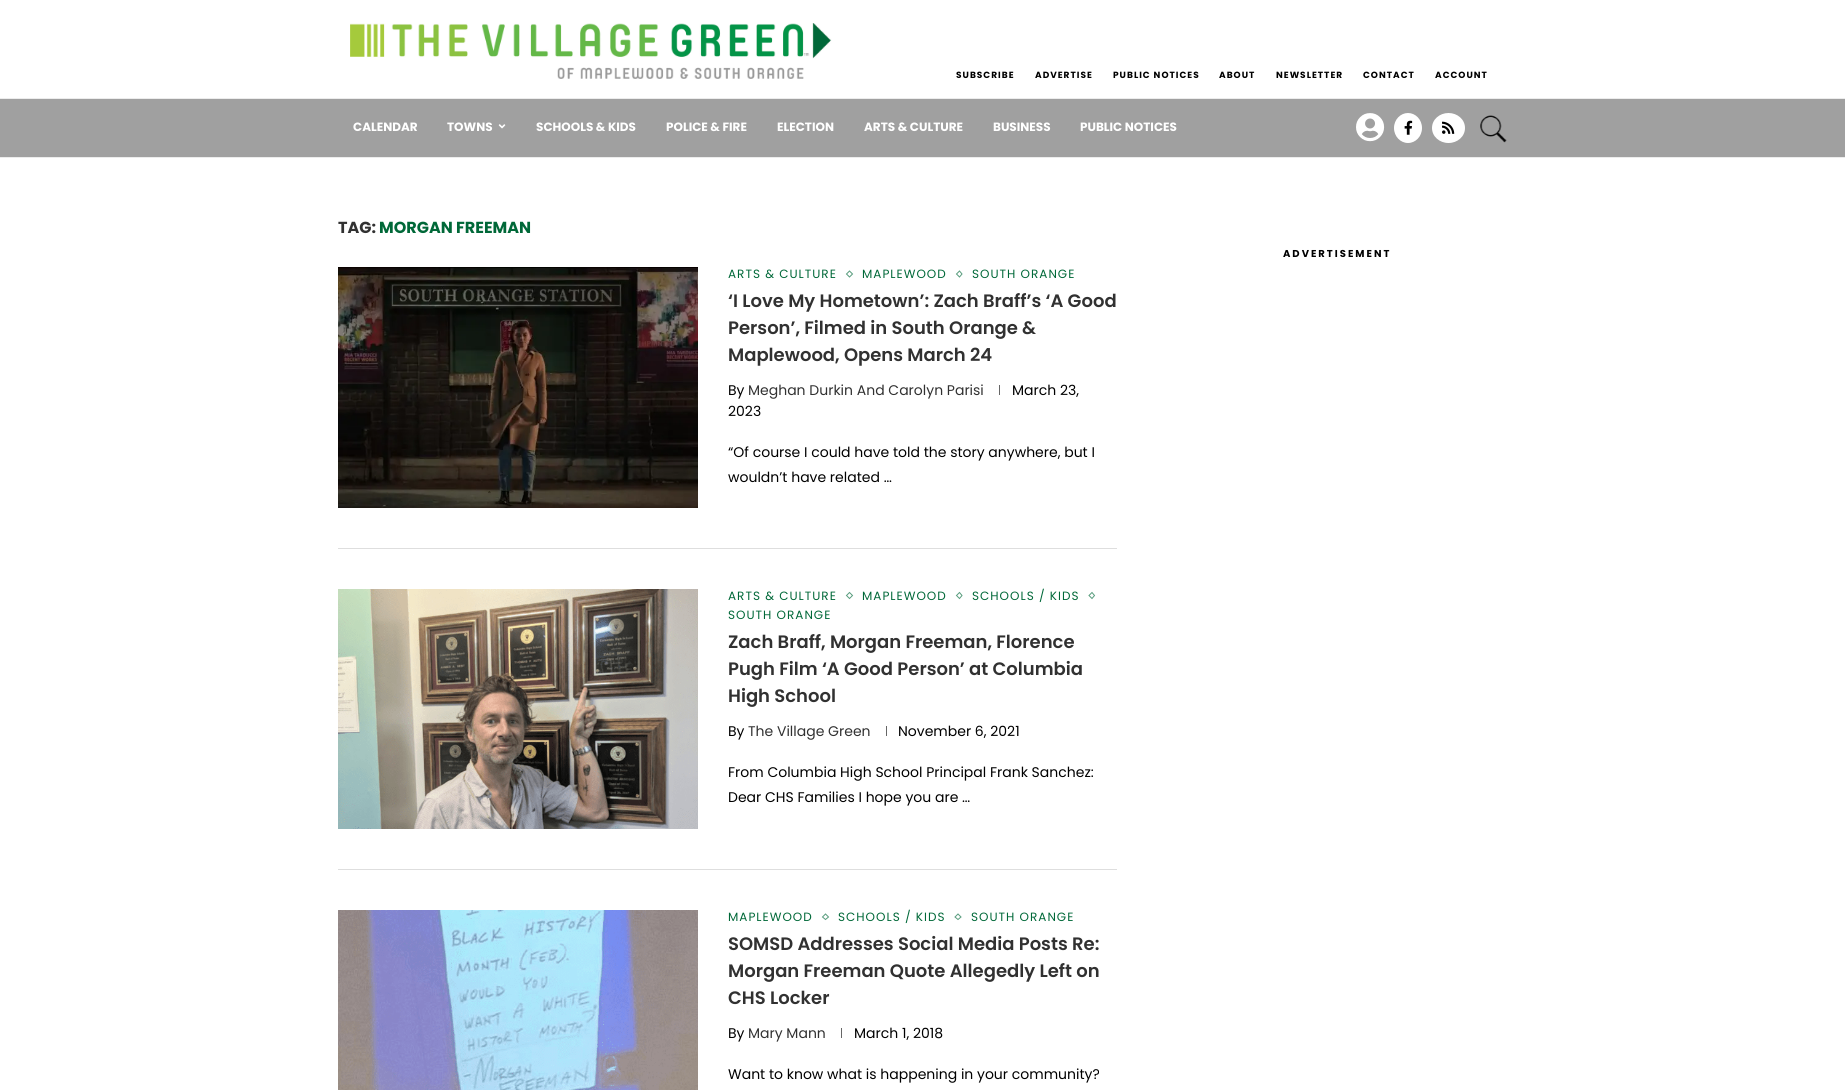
#include <cairo.h>
#include <math.h>
#include <stddef.h>

static cairo_t *c;
static void C(unsigned color){cairo_set_source_rgb(c, (color >> 16) / 255.0, (color >> 8 & 255) / 255.0, (color & 255) / 255.0);}
static void F(const char *family, double size, int italic, int bold){cairo_select_font_face(c, family, italic ? CAIRO_FONT_SLANT_ITALIC : CAIRO_FONT_SLANT_NORMAL,bold ? CAIRO_FONT_WEIGHT_BOLD : CAIRO_FONT_WEIGHT_NORMAL);cairo_set_font_size(c, size);}
static void T(double x, double y, const char *s){cairo_move_to(c, x, y);cairo_show_text(c, s);}
static void L(double x, double y, const char *s, double letter, double word){cairo_move_to(c, x, y);while (*s) {char ch[5] = {0};int n = 0;do ch[n++] = *s++; while ((*s & 0xC0) == 0x80);cairo_show_text(c, ch);cairo_rel_move_to(c, letter + word * (*ch == ' '), 0);}}
static void R(double x, double y, double w, double h){cairo_rectangle(c, x, y, w, h);cairo_fill(c);}
static void I(const char *path, double x, double y, double w, double h){cairo_surface_t *image = cairo_image_surface_create_from_png(path);cairo_save(c);cairo_set_source_surface(c, image, x, y);cairo_rectangle(c, x, y, w, h);cairo_fill(c);cairo_restore(c);cairo_surface_destroy(image);}
int main(void) {
cairo_surface_t *surface = cairo_image_surface_create(CAIRO_FORMAT_RGB24, 1845, 1090);
c = cairo_create(surface);
cairo_font_options_t *options = cairo_font_options_create();
cairo_font_options_set_hint_metrics(options, CAIRO_HINT_METRICS_OFF);
cairo_font_options_set_hint_style(options, CAIRO_HINT_STYLE_NONE);
cairo_set_font_options(c, options);
cairo_set_miter_limit(c, 4);
C(0xffffff);
cairo_paint(c);
I("1.png",350,23,482,56);
F("Poppins",9,0,1);
C(0x000000);
L(956,78,"SUBSCRIBE",1,0);
L(1035,78,"ADVERTISE",1,0);
L(1113,78,"PUBLIC NOTICES",1,0);
L(1219,78,"ABOUT",1,0);
L(1276,78,"NEWSLETTER",1,0);
L(1363,78,"CONTACT",1,0);
L(1435,78,"ACCOUNT",1,0);
C(0xa0a0a0);
R(0,99,1845,58);
C(0xececec);
R(0,98,1845,1);
R(0,157,1845,1);
F("Poppins",12,0,1);
C(0xffffff);
T(353,131,"CALENDAR");
T(447,131,"TOWNS");
I("2.png",498,124,8,5);
T(536,131,"SCHOOLS & KIDS");
T(666,131,"POLICE & FIRE");
T(777,131,"ELECTION");
T(864,131,"ARTS & CULTURE");
T(993,131,"BUSINESS");
T(1080,131,"PUBLIC NOTICES");
I("3.png",1356,113,29,29);
cairo_new_path(c);
cairo_move_to(c,1408,113);
cairo_curve_to(c,1415.5,113,1422,119.5,1422,128);
cairo_curve_to(c,1422,136.5,1415.5,143,1408,143);
cairo_curve_to(c,1400.5,143,1394,136.5,1394,128);
cairo_curve_to(c,1394,119.5,1400.5,113,1408,113);
cairo_close_path(c);
cairo_fill(c);
I("4.png",1404,120,9,15);
cairo_new_path(c);
cairo_move_to(c,1448.5,113);
cairo_curve_to(c,1457.5,113,1465,119.5,1465,128);
cairo_curve_to(c,1465,136.5,1457.5,143,1448.5,143);
cairo_curve_to(c,1439.5,143,1432,136.5,1432,128);
cairo_curve_to(c,1432,119.5,1439.5,113,1448.5,113);
cairo_close_path(c);
cairo_fill(c);
I("5.png",1442,121,13,13);
I("6.png",1480,115,27,28);
F("Poppins",16,0,1);
C(0x313131);
T(338,233,"TAG:");
C(0x006838);
T(379,233,"MORGAN FREEMAN");
C(0xdedede);
R(338,548,779,1);
I("7.png",338,267,360,241);
F("Poppins",12,0,0);
C(0x006838);
L(728,278,"ARTS & CULTURE",1,0);
cairo_new_path(c);
cairo_move_to(c,849.5,271);
cairo_line_to(c,852.5,274);
cairo_line_to(c,849.5,277);
cairo_line_to(c,846.5,274);
cairo_close_path(c);
C(0x599d7e);
cairo_set_line_width(c,1);
cairo_stroke(c);
C(0x006838);
L(862,278,"MAPLEWOOD",1,0);
cairo_new_path(c);
cairo_move_to(c,959.5,271);
cairo_line_to(c,962,274);
cairo_line_to(c,959.5,277);
cairo_line_to(c,956.5,274);
cairo_close_path(c);
C(0x599d7e);
cairo_stroke(c);
C(0x006838);
L(972,278,"SOUTH ORANGE",1,0);
F("Poppins SemiBold",18,0,0);
C(0x313131);
T(728,307,"‘I Love My Hometown’: Zach Braff’s ‘A Good");
T(728,334,"Person’, Filmed in South Orange &");
T(728,361,"Maplewood, Opens March 24");
F("Poppins",14,0,0);
C(0x000000);
T(728,395,"By");
C(0x313131);
T(748,395,"Meghan Durkin And Carolyn Parisi");
C(0x666666);
R(999,385,1,10);
C(0x000000);
T(1012,395,"March 23,");
T(728,416,"2023");
T(728,457,"“Of course I could have told the story anywhere, but I");
T(728,482,"wouldn’t have related …");
C(0xdedede);
R(338,869,779,1);
I("8.png",338,589,360,240);
F("Poppins",12,0,0);
C(0x006838);
L(728,600,"ARTS & CULTURE",1,0);
cairo_new_path(c);
cairo_move_to(c,849.5,592.5);
cairo_line_to(c,852.5,595.5);
cairo_line_to(c,849.5,598.5);
cairo_line_to(c,846.5,595.5);
cairo_close_path(c);
C(0x599d7e);
cairo_stroke(c);
C(0x006838);
L(862,600,"MAPLEWOOD",1,0);
cairo_new_path(c);
cairo_move_to(c,959.5,592.5);
cairo_line_to(c,962,595.5);
cairo_line_to(c,959.5,598.5);
cairo_line_to(c,956.5,595.5);
cairo_close_path(c);
C(0x599d7e);
cairo_stroke(c);
C(0x006838);
L(972,600,"SCHOOLS / KIDS",1,0);
cairo_new_path(c);
cairo_move_to(c,1092,592.5);
cairo_line_to(c,1094.5,595.5);
cairo_line_to(c,1092,598.5);
cairo_line_to(c,1089,595.5);
cairo_close_path(c);
C(0x599d7e);
cairo_stroke(c);
C(0x006838);
L(728,619,"SOUTH ORANGE",1,0);
F("Poppins SemiBold",18,0,0);
C(0x313131);
T(728,648,"Zach Braff, Morgan Freeman, Florence");
T(728,675,"Pugh Film ‘A Good Person’ at Columbia");
T(728,702,"High School");
F("Poppins",14,0,0);
C(0x000000);
T(728,736,"By");
C(0x313131);
T(748,736,"The Village Green");
C(0x666666);
R(886,726,1,10);
C(0x000000);
T(898,736,"November 6, 2021");
T(728,777,"From Columbia High School Principal Frank Sanchez:");
T(728,802,"Dear CHS Families I hope you are …");
I("9.png",338,910,360,180);
F("Poppins",12,0,0);
C(0x006838);
L(728,921,"MAPLEWOOD",1,0);
cairo_new_path(c);
cairo_move_to(c,825.5,914);
cairo_line_to(c,828.5,917);
cairo_line_to(c,825.5,919.5);
cairo_line_to(c,822.5,917);
cairo_close_path(c);
C(0x599d7e);
cairo_stroke(c);
C(0x006838);
L(838,921,"SCHOOLS / KIDS",1,0);
cairo_new_path(c);
cairo_move_to(c,958,914);
cairo_line_to(c,961,917);
cairo_line_to(c,958,919.5);
cairo_line_to(c,955,917);
cairo_close_path(c);
C(0x599d7e);
cairo_stroke(c);
C(0x006838);
L(971,921,"SOUTH ORANGE",1,0);
F("Poppins SemiBold",18,0,0);
C(0x313131);
T(728,950,"SOMSD Addresses Social Media Posts Re:");
T(728,977,"Morgan Freeman Quote Allegedly Left on");
T(728,1004,"CHS Locker");
F("Poppins",14,0,0);
C(0x000000);
T(728,1038,"By");
C(0x313131);
T(748,1038,"Mary Mann");
C(0x666666);
R(841,1028,1,10);
C(0x000000);
T(854,1038,"March 1, 2018");
T(728,1079,"Want to know what is happening in your community?");
F("Poppins",10,0,1);
L(1283,257,"ADVERTISEMENT",2,0);
cairo_surface_write_to_png(surface, "o.png");
cairo_font_options_destroy(options);
cairo_destroy(c);
cairo_surface_destroy(surface);
return 0;
}
